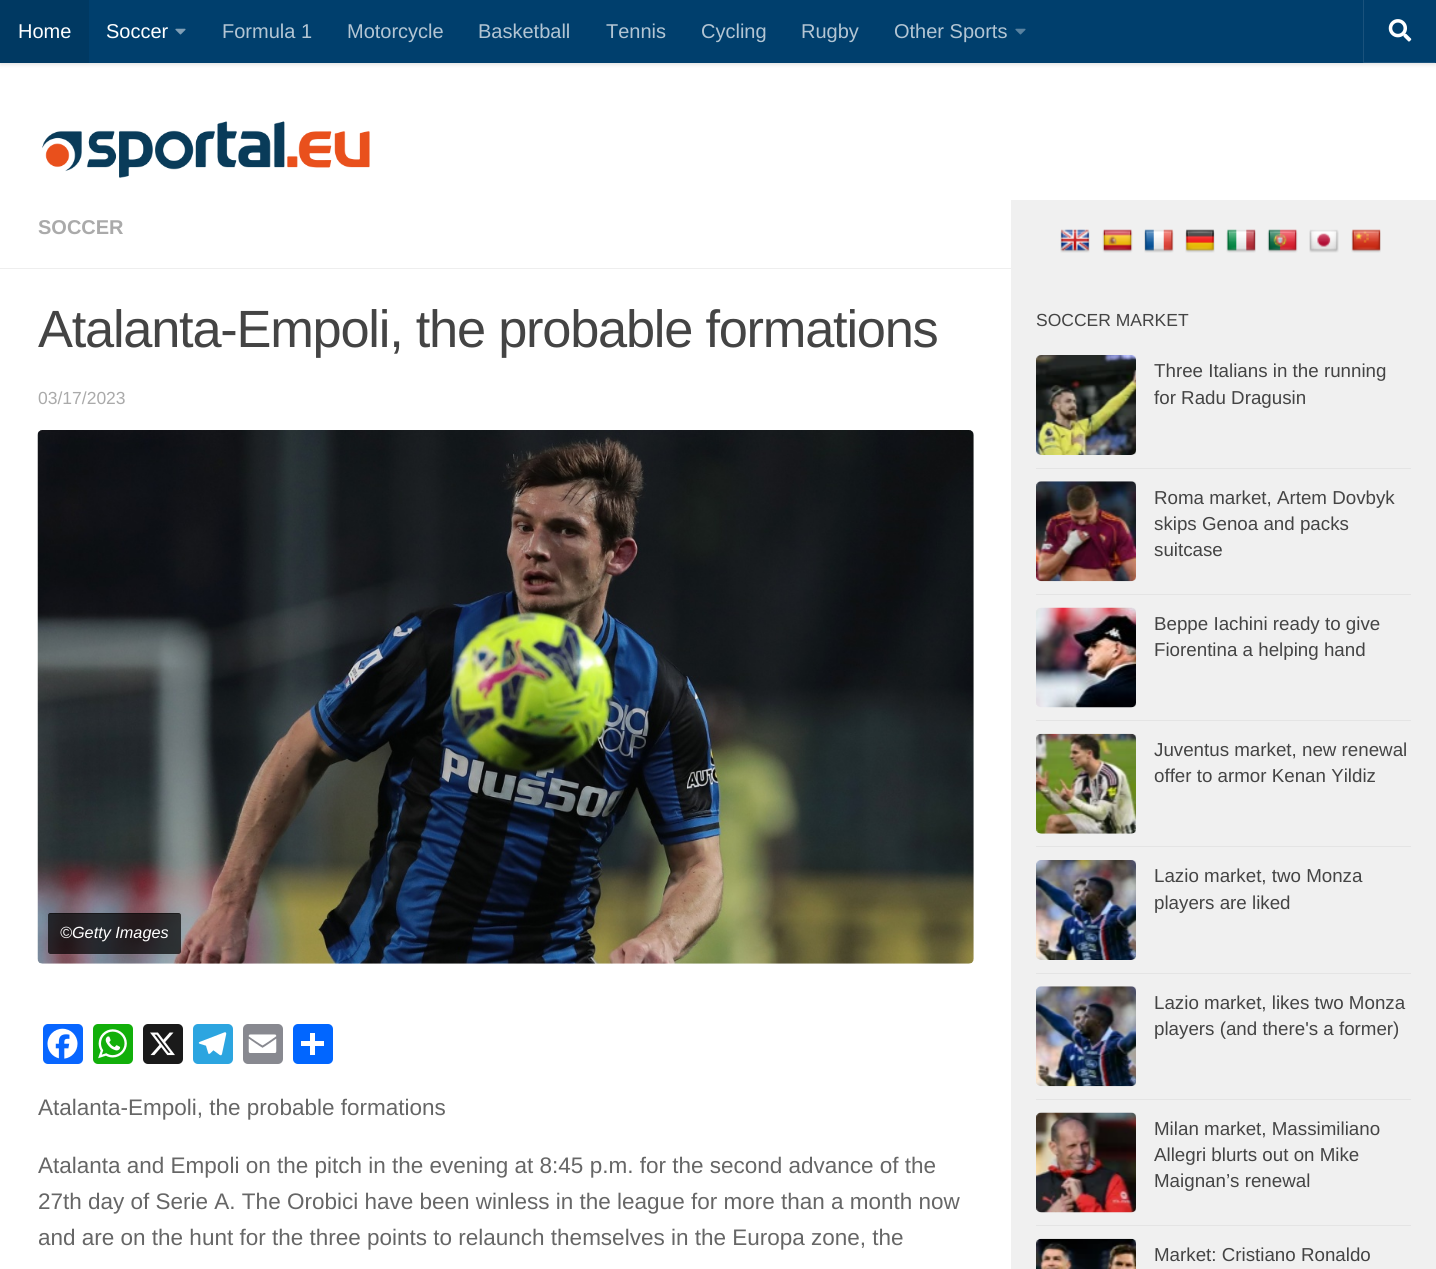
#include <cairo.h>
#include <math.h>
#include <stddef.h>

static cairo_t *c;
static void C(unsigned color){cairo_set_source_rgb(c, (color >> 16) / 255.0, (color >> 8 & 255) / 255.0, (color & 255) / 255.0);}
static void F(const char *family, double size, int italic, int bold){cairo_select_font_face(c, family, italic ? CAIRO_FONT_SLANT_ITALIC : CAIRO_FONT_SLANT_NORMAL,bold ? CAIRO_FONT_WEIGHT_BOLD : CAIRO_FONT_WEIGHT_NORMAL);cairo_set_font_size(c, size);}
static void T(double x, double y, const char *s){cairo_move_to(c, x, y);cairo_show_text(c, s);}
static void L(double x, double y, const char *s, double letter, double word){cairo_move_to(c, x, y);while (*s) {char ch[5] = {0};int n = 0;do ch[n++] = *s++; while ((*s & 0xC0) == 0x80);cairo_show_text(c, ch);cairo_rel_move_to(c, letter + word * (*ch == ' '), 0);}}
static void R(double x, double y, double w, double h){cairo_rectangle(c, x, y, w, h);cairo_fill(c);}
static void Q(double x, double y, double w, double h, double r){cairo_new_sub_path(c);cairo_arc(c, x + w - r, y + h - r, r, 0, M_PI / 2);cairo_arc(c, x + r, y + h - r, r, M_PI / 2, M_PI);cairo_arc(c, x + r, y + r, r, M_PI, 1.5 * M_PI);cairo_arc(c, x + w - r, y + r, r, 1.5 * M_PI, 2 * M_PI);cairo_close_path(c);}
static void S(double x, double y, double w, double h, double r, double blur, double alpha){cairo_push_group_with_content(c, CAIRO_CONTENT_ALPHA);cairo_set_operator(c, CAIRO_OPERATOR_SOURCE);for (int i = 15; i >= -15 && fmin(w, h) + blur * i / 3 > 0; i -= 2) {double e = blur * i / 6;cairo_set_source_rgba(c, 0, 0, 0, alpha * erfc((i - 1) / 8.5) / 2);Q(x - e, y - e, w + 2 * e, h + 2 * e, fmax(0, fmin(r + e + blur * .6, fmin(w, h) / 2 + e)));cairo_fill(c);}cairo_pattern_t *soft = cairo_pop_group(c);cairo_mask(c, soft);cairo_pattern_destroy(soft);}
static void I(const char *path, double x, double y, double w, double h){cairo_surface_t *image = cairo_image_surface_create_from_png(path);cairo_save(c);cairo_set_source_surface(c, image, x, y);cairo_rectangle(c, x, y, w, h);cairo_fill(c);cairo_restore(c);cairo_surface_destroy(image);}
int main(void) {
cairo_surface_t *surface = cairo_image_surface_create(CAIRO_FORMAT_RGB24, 1436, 1269);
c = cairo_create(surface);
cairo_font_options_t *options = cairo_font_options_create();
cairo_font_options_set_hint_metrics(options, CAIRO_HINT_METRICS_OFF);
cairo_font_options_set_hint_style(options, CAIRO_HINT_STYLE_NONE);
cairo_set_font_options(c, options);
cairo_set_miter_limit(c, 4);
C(0xffffff);
cairo_paint(c);
C(0x000000);
S(0,0,1436,63,0,3,.2);
C(0x003f6d);
R(89,0,1347,63);
C(0x003962);
R(0,0,89,63);
F("Liberation Sans",20,0,0);
C(0xffffff);
T(18,38,"Home");
T(106,38,"Soccer");
I("1.png",175,28,11,7);
C(0xb3c5d3);
T(222,38,"Formula 1");
T(347,38,"Motorcycle");
T(478,38,"Basketball");
T(606,38,"Tennis");
T(701,38,"Cycling");
T(801,38,"Rugby");
T(894,38,"Other Sports");
I("2.png",1015,28,11,7);
C(0x1a527c);
cairo_new_path(c);
cairo_move_to(c,1363,0);
cairo_line_to(c,1363,63);
cairo_line_to(c,1435,63);
cairo_line_to(c,1435,62);
cairo_line_to(c,1364,62);
cairo_line_to(c,1364,0);
cairo_close_path(c);
cairo_fill(c);
I("3.png",1388,19,24,23);
I("4.png",42,121,328,57);
C(0xf0f0f0);
R(1011,200,425,1069);
C(0xeeeeee);
R(0,268,1011,1);
F("Liberation Sans",20,0,1);
C(0xaaaaaa);
T(38,234,"SOCCER");
F("Liberation Sans",52.4,0,0);
C(0x444444);
L(38,347,"Atalanta-Empoli, the probable formations",-1.25,0);
F("Liberation Sans",17.5,0,0);
C(0xaaaaaa);
T(38,404,"03/17/2023");
I("5.png",37,430,937,534);
cairo_set_source_rgba(c,1,1,1,0.03);
cairo_new_path(c);
cairo_move_to(c,48,953);
cairo_curve_to(c,48,954,49,955,50,955);
cairo_line_to(c,178,955);
cairo_curve_to(c,180,955,181,954,181,952);
cairo_line_to(c,180,953);
cairo_line_to(c,179,954);
cairo_line_to(c,50,954);
cairo_close_path(c);
cairo_fill(c);
cairo_set_source_rgba(c,0,0,0,0.7);
Q(48,913,133,41,2.5);
cairo_fill(c);
cairo_set_source_rgba(c,0,0,0,0.4);
cairo_new_path(c);
cairo_move_to(c,50,914);
cairo_line_to(c,179,914);
cairo_curve_to(c,180,914,181,915,181,916);
cairo_curve_to(c,181,914,180,913,178,913);
cairo_line_to(c,50,913);
cairo_curve_to(c,49,913,48,914,48,916);
cairo_curve_to(c,48,915,49,914,50,914);
cairo_close_path(c);
cairo_fill(c);
F("Liberation Sans",16.25,1,0);
C(0xffffff);
T(60,938,"©Getty Images");
C(0x0866ff);
Q(43,1024,40,40,5);
cairo_fill(c);
I("6.png",47,1028,31,31);
C(0x12af0a);
Q(93,1024,40,40,5);
cairo_fill(c);
I("7.png",98,1029,29,30);
C(0x1a1a1a);
Q(143,1024,40,40,5);
cairo_fill(c);
I("8.png",150,1032,25,24);
C(0x2ca5e0);
Q(193,1024,40,40,5);
cairo_fill(c);
I("9.png",198,1032,29,24);
C(0x888990);
Q(243,1024,40,40,5);
cairo_fill(c);
I("10.png",248,1034,29,19);
C(0x0166ff);
Q(293,1024,40,40,5);
cairo_fill(c);
C(0xffffff);
R(310,1033,5,22);
R(301,1041,23,5);
F("Liberation Sans",22.5,0,0);
C(0x666666);
T(38,1115,"Atalanta-Empoli, the probable formations");
T(38,1173,"Atalanta and Empoli on the pitch in the evening at 8:45 p.m. for the second advance of the");
T(38,1209,"27th day of Serie A. The Orobici have been winless in the league for more than a month now");
T(38,1245,"and are on the hunt for the three points to relaunch themselves in the Europa zone, the");
I("11.png",1060,229,30,24);
I("12.png",1102,229,31,24);
I("13.png",1144,229,30,24);
I("14.png",1185,229,30,24);
I("15.png",1226,229,30,24);
I("16.png",1267,229,31,24);
I("17.png",1309,229,30,24);
I("18.png",1351,229,30,24);
F("Liberation Sans",17.5,0,0);
C(0x444444);
T(1036,326,"SOCCER MARKET");
C(0xe4e4e4);
R(1036,468,375,1);
I("19.png",1036,355,100,100);
F("Liberation Sans",18.75,0,0);
C(0x444444);
T(1154,377,"Three Italians in the running");
T(1154,404,"for Radu Dragusin");
C(0xe4e4e4);
R(1036,594,375,1);
I("20.png",1036,481,100,101);
C(0x444444);
T(1154,504,"Roma market, Artem Dovbyk");
T(1154,530,"skips Genoa and packs");
T(1154,556,"suitcase");
C(0xe4e4e4);
R(1036,720,375,1);
I("21.png",1036,607,100,101);
C(0x444444);
T(1154,630,"Beppe Iachini ready to give");
T(1154,656,"Fiorentina a helping hand");
C(0xe4e4e4);
R(1036,846,375,1);
I("22.png",1036,733,100,101);
C(0x444444);
T(1154,756,"Juventus market, new renewal");
T(1154,782,"offer to armor Kenan Yildiz");
C(0xe4e4e4);
R(1036,973,375,1);
I("23.png",1036,860,100,100);
C(0x444444);
T(1154,882,"Lazio market, two Monza");
T(1154,909,"players are liked");
C(0xe4e4e4);
R(1036,1099,375,1);
I("24.png",1036,986,100,101);
C(0x444444);
T(1154,1009,"Lazio market, likes two Monza");
T(1154,1035,"players (and there's a former)");
C(0xe4e4e4);
R(1036,1225,375,1);
I("25.png",1036,1112,100,101);
C(0x444444);
T(1154,1135,"Milan market, Massimiliano");
T(1154,1161,"Allegri blurts out on Mike");
T(1154,1187,"Maignan’s renewal");
I("26.png",1036,1238,100,31);
T(1154,1261,"Market: Cristiano Ronaldo");
cairo_surface_write_to_png(surface, "o.png");
cairo_font_options_destroy(options);
cairo_destroy(c);
cairo_surface_destroy(surface);
return 0;
}
